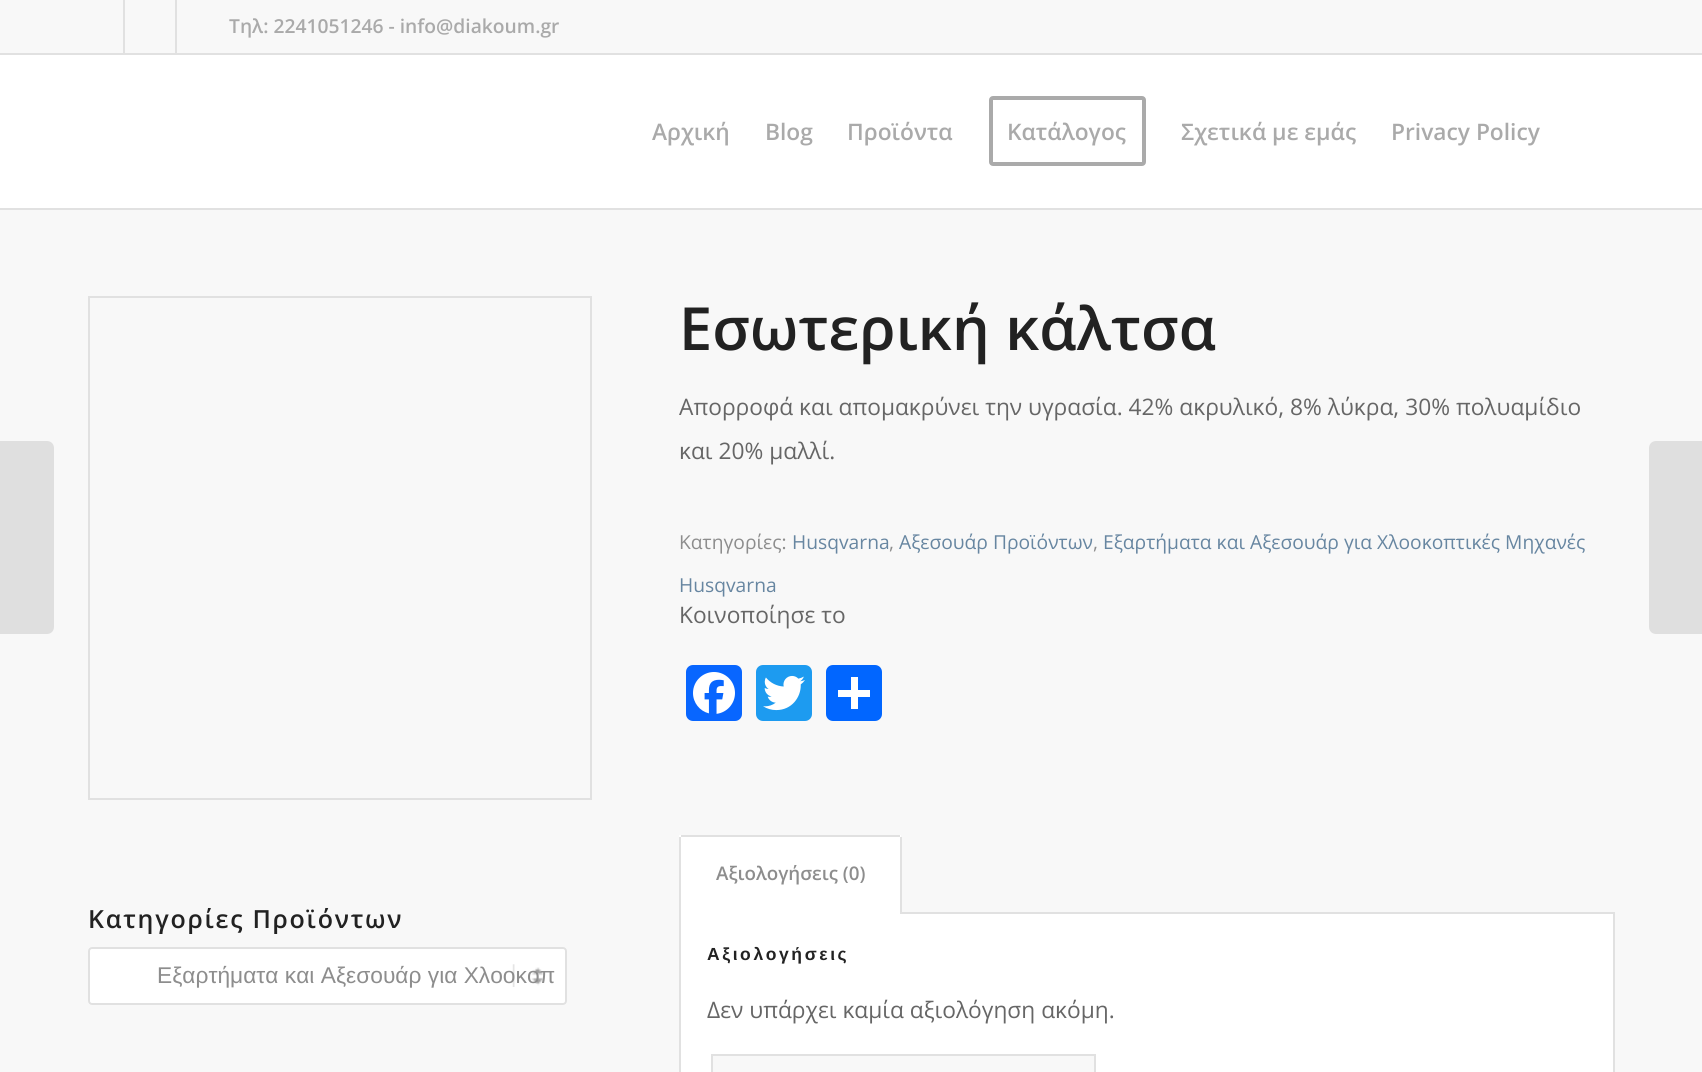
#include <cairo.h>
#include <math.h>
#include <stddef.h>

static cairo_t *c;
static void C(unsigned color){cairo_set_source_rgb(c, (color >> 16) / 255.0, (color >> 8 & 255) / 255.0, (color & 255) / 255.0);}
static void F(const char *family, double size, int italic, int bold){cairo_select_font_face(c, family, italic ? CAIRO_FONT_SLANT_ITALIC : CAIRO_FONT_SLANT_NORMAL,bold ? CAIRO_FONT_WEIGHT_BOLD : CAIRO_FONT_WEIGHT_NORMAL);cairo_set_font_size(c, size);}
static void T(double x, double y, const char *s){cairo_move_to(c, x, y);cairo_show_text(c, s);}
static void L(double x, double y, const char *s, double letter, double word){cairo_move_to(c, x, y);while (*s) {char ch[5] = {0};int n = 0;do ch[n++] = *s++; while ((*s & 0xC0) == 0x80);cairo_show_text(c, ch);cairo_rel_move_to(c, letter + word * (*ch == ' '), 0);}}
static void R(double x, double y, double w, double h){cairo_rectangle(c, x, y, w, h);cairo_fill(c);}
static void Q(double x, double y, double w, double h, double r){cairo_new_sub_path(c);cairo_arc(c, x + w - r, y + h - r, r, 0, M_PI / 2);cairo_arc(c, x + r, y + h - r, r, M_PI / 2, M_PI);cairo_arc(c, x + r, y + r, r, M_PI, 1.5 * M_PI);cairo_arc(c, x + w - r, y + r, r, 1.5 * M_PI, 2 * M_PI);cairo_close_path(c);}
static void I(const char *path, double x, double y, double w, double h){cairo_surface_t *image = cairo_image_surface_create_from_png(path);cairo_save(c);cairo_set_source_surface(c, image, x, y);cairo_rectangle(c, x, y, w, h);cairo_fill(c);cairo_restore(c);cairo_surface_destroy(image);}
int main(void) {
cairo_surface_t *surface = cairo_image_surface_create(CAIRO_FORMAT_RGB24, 1702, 1072);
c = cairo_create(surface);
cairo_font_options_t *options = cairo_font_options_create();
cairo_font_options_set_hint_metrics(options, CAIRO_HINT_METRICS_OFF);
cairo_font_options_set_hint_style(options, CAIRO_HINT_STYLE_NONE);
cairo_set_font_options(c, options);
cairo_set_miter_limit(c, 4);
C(0xf8f8f8);
cairo_paint(c);
C(0xe1e1e1);
R(0,53,1702,2);
R(123,0,2,53);
R(175,0,2,53);
F("Open Sans SemiBold",19.25,0,0);
C(0xaaaaaa);
T(229,33,"Τηλ: 2241051246 - info@diakoum.gr");
C(0xffffff);
R(0,55,1702,153);
C(0xe1e1e1);
R(0,208,1702,2);
F("Open Sans SemiBold",22.75,0,0);
C(0xaaaaaa);
T(652,140,"Αρχική");
T(765,140,"Blog");
T(847,140,"Προϊόντα");
Q(991,98,153,66,2);
cairo_set_line_width(c,4);
cairo_stroke(c);
T(1007,140,"Κατάλογος");
T(1181,140,"Σχετικά με εμάς");
T(1391,140,"Privacy Policy");
C(0xdfdfdf);
cairo_new_path(c);
cairo_move_to(c,0,441);
cairo_line_to(c,47,441);
cairo_curve_to(c,51,441,54,444,54,448);
cairo_line_to(c,54,627);
cairo_curve_to(c,54,631,51,634,47,634);
cairo_line_to(c,0,634);
cairo_close_path(c);
cairo_fill(c);
cairo_rectangle(c,89,297,502,502);
C(0xe1e1e1);
cairo_set_line_width(c,2);
cairo_stroke(c);
F("Open Sans SemiBold",25,0,0);
C(0x222222);
L(88,928,"Κατηγορίες Προϊόντων",1.75,0);
C(0xffffff);
Q(88,947,479,58,4);
cairo_fill(c);
I("1.png",512,964,32,23);
Q(89,948,477,56,3);
C(0xe1e1e1);
cairo_stroke(c);
F("Liberation Sans",22.75,0,0);
C(0x8d8d8d);
T(157,983,"Εξαρτήματα και Αξεσουάρ για Χλοοκοπ");
F("Open Sans SemiBold",59.5,0,0);
C(0x222222);
T(679,350,"Εσωτερική κάλτσα");
F("Open Sans",22.75,0,0);
C(0x666666);
T(679,415,"Απορροφά και απομακρύνει την υγρασία. 42% ακρυλικό, 8% λύκρα, 30% πολυαμίδιο");
T(679,459,"και 20% μαλλί.");
F("Open Sans",19.25,0,0);
C(0x8d8d8d);
T(679,549,"Κατηγορίες:");
C(0x6786a1);
T(792,549,"Husqvarna");
C(0x8d8d8d);
T(889,549,",");
C(0x6786a1);
T(899,549,"Αξεσουάρ Προϊόντων");
C(0x8d8d8d);
T(1093,549,",");
C(0x6786a1);
T(1103,549,"Εξαρτήματα και Αξεσουάρ για Χλοοκοπτικές Μηχανές");
T(679,592,"Husqvarna");
F("Open Sans",22.75,0,0);
C(0x666666);
T(679,623,"Κοινοποίησε το");
C(0x0866ff);
Q(686,665,56,56,7);
cairo_fill(c);
I("2.png",693,672,42,42);
C(0x1d9bf0);
Q(756,665,56,56,7);
cairo_fill(c);
I("3.png",763,675,42,36);
C(0x0166ff);
Q(826,665,56,56,7);
cairo_fill(c);
C(0xffffff);
R(851,677,7,32);
R(838,690,32,7);
cairo_rectangle(c,680,913,934,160);
cairo_fill_preserve(c);
C(0xe1e1e1);
cairo_stroke(c);
C(0xffffff);
R(679,835,222,79);
C(0xe1e1e1);
R(681,835,219,2);
R(900,837,2,77);
R(679,837,2,77);
F("Open Sans SemiBold",18.75,0,0);
C(0x8d8d8d);
T(716,880,"Αξιολογήσεις (0)");
F("Liberation Sans",17.5,0,1);
C(0x222222);
L(707,960,"Αξιολογήσεις",2.6,0);
F("Open Sans",22.75,0,0);
C(0x666666);
T(707,1018,"Δεν υπάρχει καμία αξιολόγηση ακόμη.");
C(0xf8f8f8);
cairo_rectangle(c,712,1055,383,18);
cairo_fill_preserve(c);
C(0xe1e1e1);
cairo_stroke(c);
C(0xdfdfdf);
cairo_new_path(c);
cairo_move_to(c,1656,441);
cairo_line_to(c,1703,441);
cairo_line_to(c,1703,634);
cairo_line_to(c,1656,634);
cairo_curve_to(c,1652,634,1649,631,1649,627);
cairo_line_to(c,1649,448);
cairo_curve_to(c,1649,444,1652,441,1656,441);
cairo_close_path(c);
cairo_fill(c);
cairo_surface_write_to_png(surface, "o.png");
cairo_font_options_destroy(options);
cairo_destroy(c);
cairo_surface_destroy(surface);
return 0;
}
